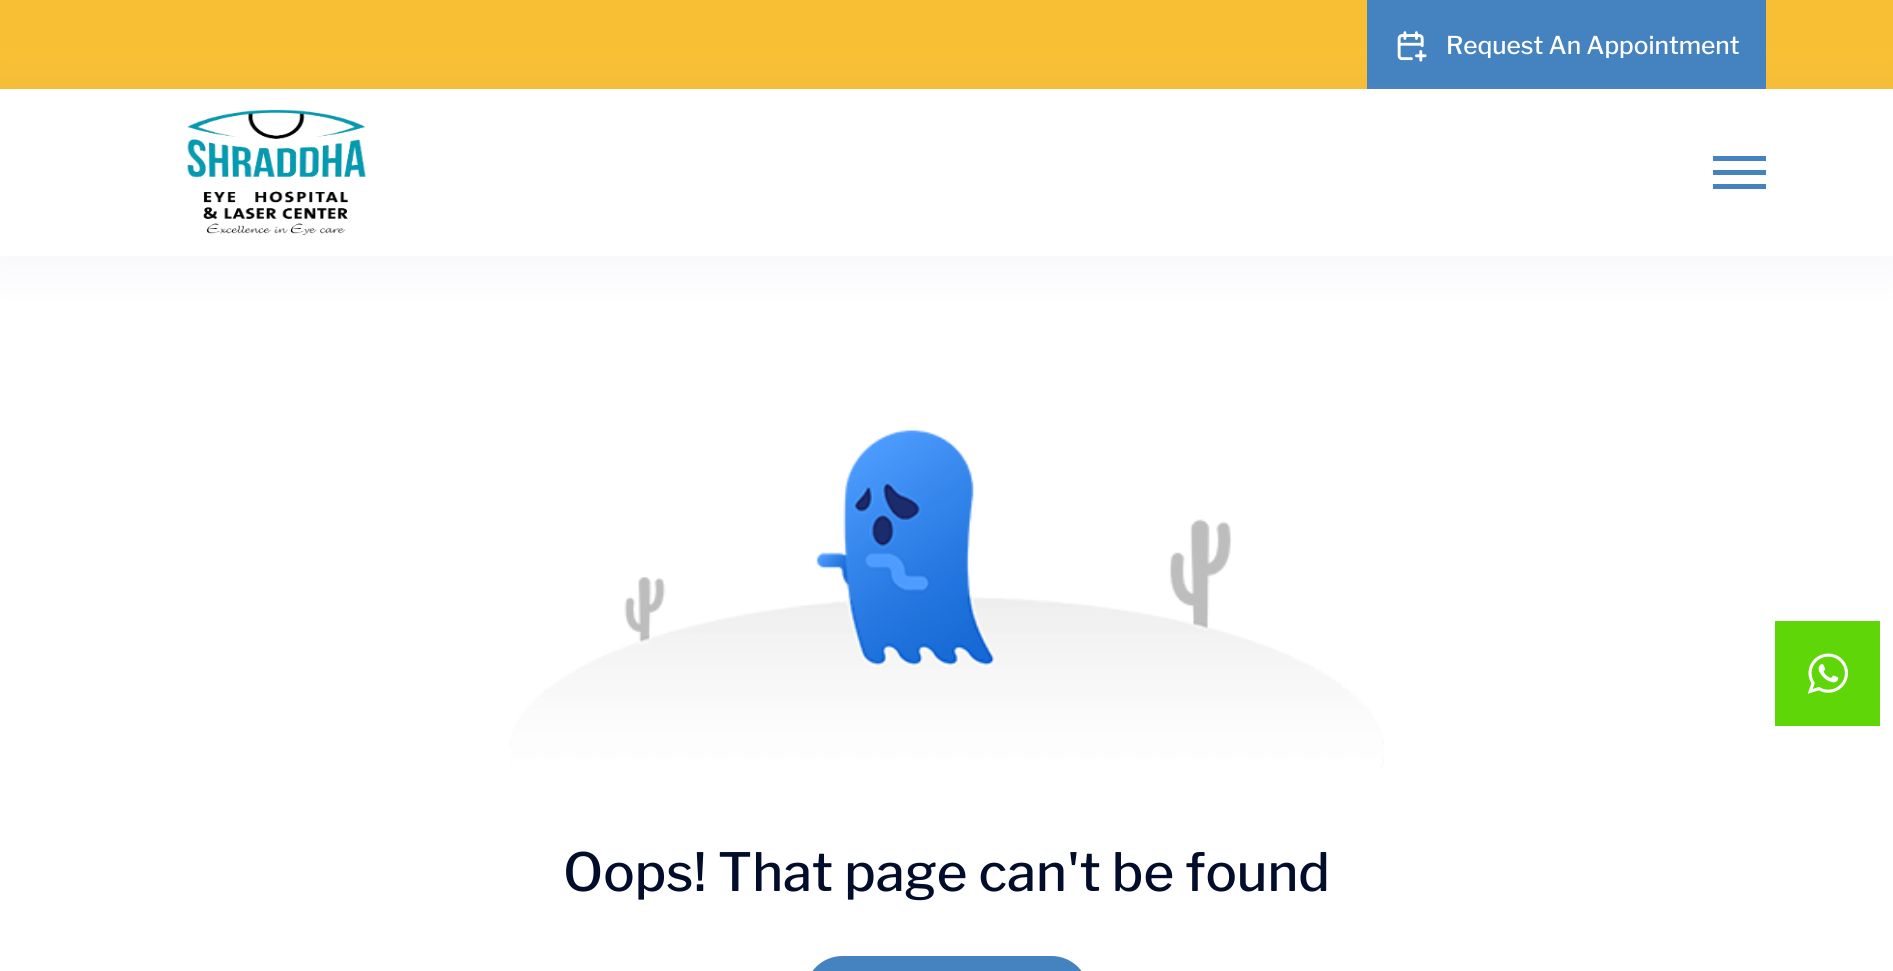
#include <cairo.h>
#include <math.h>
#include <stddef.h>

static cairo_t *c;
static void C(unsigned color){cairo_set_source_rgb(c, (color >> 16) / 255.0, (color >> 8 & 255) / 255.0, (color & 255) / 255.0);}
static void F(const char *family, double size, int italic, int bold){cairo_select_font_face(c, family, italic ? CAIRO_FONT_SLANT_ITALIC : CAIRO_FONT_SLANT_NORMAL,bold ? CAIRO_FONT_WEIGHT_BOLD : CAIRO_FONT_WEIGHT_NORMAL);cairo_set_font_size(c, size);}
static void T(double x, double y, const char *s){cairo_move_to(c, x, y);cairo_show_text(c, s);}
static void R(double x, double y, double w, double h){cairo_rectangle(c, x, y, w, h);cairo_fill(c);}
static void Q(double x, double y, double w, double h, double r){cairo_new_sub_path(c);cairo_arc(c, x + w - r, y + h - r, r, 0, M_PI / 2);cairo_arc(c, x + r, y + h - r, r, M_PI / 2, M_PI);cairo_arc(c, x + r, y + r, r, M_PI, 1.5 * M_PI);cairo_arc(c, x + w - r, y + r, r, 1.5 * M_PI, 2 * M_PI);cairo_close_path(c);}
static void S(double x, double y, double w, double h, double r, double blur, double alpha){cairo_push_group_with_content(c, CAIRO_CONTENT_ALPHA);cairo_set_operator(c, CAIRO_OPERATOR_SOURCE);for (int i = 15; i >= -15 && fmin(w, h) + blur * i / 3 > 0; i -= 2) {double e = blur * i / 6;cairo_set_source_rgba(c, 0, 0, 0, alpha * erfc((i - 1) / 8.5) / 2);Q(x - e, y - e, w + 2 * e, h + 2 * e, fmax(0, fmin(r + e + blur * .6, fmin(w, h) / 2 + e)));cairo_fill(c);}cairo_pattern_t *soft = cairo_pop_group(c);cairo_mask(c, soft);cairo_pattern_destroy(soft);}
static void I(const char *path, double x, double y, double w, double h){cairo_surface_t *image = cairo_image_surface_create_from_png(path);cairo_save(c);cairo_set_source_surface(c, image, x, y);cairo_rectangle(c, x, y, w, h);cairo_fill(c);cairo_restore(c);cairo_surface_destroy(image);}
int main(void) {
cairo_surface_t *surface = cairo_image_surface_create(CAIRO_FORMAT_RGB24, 1893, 971);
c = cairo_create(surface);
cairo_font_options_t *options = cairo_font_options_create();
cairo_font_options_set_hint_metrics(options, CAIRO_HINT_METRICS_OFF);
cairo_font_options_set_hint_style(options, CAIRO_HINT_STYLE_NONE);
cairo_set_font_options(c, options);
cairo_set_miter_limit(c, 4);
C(0xffffff);
cairo_paint(c);
C(0xf9bf34);
R(0,0,1893,89);
C(0x4482c0);
R(1367,0,399,89);
I("2.png",1397,31,30,31);
C(0x928bdd);
S(0,96,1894,167,0,26,.1);
C(0xffffff);
R(0,89,1893,167);
I("1.png",187,109,179,126);
C(0x4482c0);
R(1713,156,53,5);
R(1713,170,53,5);
R(1713,184,53,5);
F("Libre Franklin Medium",24.5,0,0);
C(0xffffff);
T(1446,54,"Request An Appointment");
C(0x5ed608);
R(1775,621,105,105);
I("3.png",1807,653,41,41);
I("4.png",509,430,875,339);
F("Libre Franklin Medium",52.5,0,0);
C(0x020d2b);
T(563,891,"Oops! That page can't be found");
C(0x4482c0);
Q(805,956,284,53,37.5);
cairo_fill(c);
cairo_surface_write_to_png(surface, "o.png");
cairo_font_options_destroy(options);
cairo_destroy(c);
cairo_surface_destroy(surface);
return 0;
}
